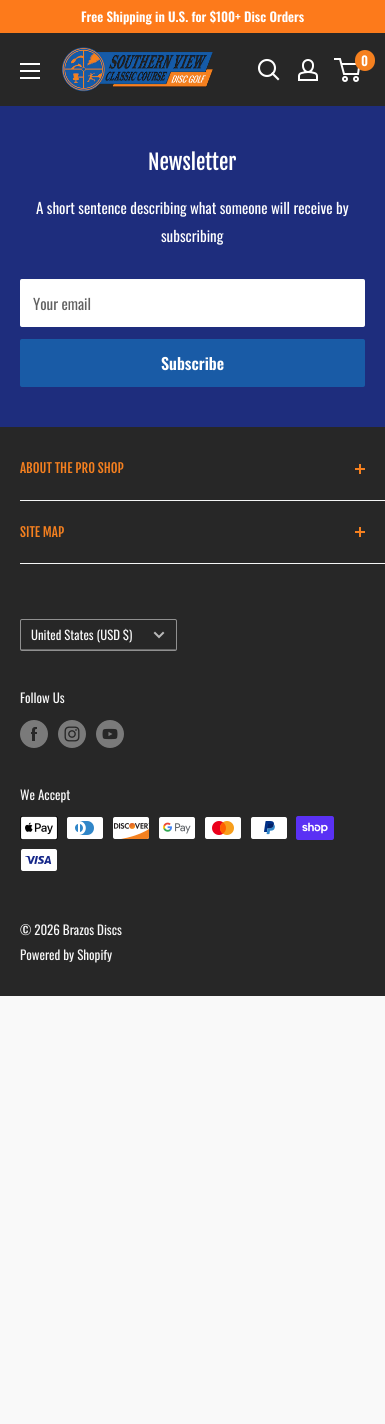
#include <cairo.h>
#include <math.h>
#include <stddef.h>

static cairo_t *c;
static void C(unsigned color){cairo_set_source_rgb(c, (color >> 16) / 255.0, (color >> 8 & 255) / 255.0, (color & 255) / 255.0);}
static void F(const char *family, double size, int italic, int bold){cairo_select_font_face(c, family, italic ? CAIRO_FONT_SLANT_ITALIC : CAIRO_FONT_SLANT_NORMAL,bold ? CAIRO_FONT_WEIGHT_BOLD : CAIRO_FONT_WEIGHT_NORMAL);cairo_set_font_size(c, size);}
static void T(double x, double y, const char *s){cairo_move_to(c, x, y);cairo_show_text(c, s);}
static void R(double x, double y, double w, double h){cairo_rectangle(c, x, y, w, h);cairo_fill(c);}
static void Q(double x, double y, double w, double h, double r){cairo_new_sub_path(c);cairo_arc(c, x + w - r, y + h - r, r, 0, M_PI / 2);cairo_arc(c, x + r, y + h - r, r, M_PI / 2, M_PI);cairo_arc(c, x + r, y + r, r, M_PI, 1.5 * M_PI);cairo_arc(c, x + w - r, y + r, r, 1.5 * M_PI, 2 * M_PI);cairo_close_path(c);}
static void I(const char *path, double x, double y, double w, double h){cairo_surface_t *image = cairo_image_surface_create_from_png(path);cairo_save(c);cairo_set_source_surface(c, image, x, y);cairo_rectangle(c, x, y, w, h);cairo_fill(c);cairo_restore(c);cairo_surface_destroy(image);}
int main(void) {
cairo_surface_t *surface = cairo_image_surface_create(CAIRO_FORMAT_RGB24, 385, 1424);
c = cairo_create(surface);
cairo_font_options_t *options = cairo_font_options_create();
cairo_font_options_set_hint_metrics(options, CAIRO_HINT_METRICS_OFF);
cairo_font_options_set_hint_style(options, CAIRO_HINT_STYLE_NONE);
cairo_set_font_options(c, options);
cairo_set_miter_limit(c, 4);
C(0xf9f9f9);
cairo_paint(c);
C(0xfd7a1b);
R(0,0,385,32);
C(0xfb7c1c);
R(0,32,385,1);
F("Oswald SemiBold",13,0,0);
C(0xffffff);
T(81,22,"Free Shipping in U.S. for $100+ Disc Orders");
C(0x272727);
R(0,33,385,73);
I("1.png",61,47,152,45);
cairo_new_path(c);
cairo_move_to(c,278,79);
cairo_line_to(c,272.5,73.5);
C(0xffffff);
cairo_set_line_width(c,2.1);
cairo_set_line_cap(c,CAIRO_LINE_CAP_SQUARE);
cairo_stroke(c);
cairo_arc(c,267,68,8,0,2 * M_PI);
cairo_set_line_cap(c,CAIRO_LINE_CAP_BUTT);
cairo_stroke(c);
I("2.png",298,59,20,22);
cairo_arc(c,345,79,2,0,2 * M_PI);
cairo_set_line_width(c,2);
cairo_stroke(c);
cairo_arc(c,356,79,2,0,2 * M_PI);
cairo_stroke(c);
cairo_new_path(c);
cairo_move_to(c,341.5,64);
cairo_line_to(c,359.5,64);
cairo_line_to(c,358,74);
cairo_line_to(c,344,74);
cairo_line_to(c,340,59);
cairo_line_to(c,334,59);
cairo_stroke(c);
C(0xf5801f);
Q(355,50,20,21,10);
cairo_fill(c);
C(0xffffff);
T(361,66,"0");
I("3.png",20,63,20,16);
C(0x1e2d7d);
R(0,106,385,321);
F("Fjalla One",21,0,0);
C(0xffffff);
T(148,170,"Newsletter");
F("Oswald",15,0,0);
T(36,214,"A short sentence describing what someone will receive by");
T(161,242,"subscribing");
Q(20,279,345,48,2);
cairo_fill(c);
cairo_set_source_rgba(c,0.961,0.965,0.965,0.25);
cairo_new_path(c);
cairo_move_to(c,22,280);
cairo_line_to(c,363,280);
cairo_curve_to(c,364,280,365,281,365,282);
cairo_curve_to(c,365,281,365,279,363,279);
cairo_line_to(c,22,279);
cairo_line_to(c,20,280);
cairo_line_to(c,20,282);
cairo_curve_to(c,20,281,21,280,22,280);
cairo_close_path(c);
cairo_fill(c);
C(0x616161);
T(33,310,"Your email");
C(0x195ba6);
Q(20,339,345,48,2);
cairo_fill(c);
F("Oswald SemiBold",16,0,0);
C(0xffffff);
T(161,370,"Subscribe");
C(0x272727);
R(0,427,385,569);
C(0xf5f6f6);
R(20,500,365,1);
F("Fjalla One",13,0,0);
C(0xf5801f);
T(20,473,"ABOUT THE PRO SHOP");
R(359,464,2,10);
R(355,468,10,2);
C(0xf5f6f6);
R(20,563,365,1);
C(0xf5801f);
T(20,537,"SITE MAP");
R(359,527,2,10);
R(355,531,10,2);
C(0x656565);
cairo_new_path(c);
cairo_move_to(c,21,648);
cairo_line_to(c,21,650);
cairo_line_to(c,175,650);
cairo_curve_to(c,176,650,176,649,176,648);
cairo_curve_to(c,176,649,176,649,175,649);
cairo_line_to(c,21,649);
cairo_close_path(c);
cairo_fill(c);
Q(20.5,619.5,156,31,1.5);
C(0x909090);
cairo_set_line_width(c,1);
cairo_stroke(c);
F("Oswald",12.75,0,0);
C(0xf8f8f8);
T(31,640,"United States (USD $)");
cairo_new_path(c);
cairo_move_to(c,163,633);
cairo_line_to(c,159,637);
cairo_line_to(c,155,633);
C(0xb9b9b9);
cairo_set_line_width(c,2);
cairo_set_line_cap(c,CAIRO_LINE_CAP_SQUARE);
cairo_stroke(c);
F("Oswald",13,0,0);
C(0xf8f8f8);
T(20,703,"Follow Us");
I("4.png",20,720,28,28);
I("5.png",58,720,28,28);
I("6.png",96,720,28,28);
T(20,800,"We Accept");
I("7.png",20,816,38,24);
I("8.png",67,817,36,22);
I("9.png",113,817,36,22);
I("10.png",159,817,36,22);
I("11.png",205,817,36,22);
I("12.png",251,817,36,22);
I("13.png",296,816,38,24);
I("14.png",21,849,36,22);
T(20,935,"© 2026 Brazos Discs");
T(20,960,"Powered by Shopify");
cairo_surface_write_to_png(surface, "o.png");
cairo_font_options_destroy(options);
cairo_destroy(c);
cairo_surface_destroy(surface);
return 0;
}
